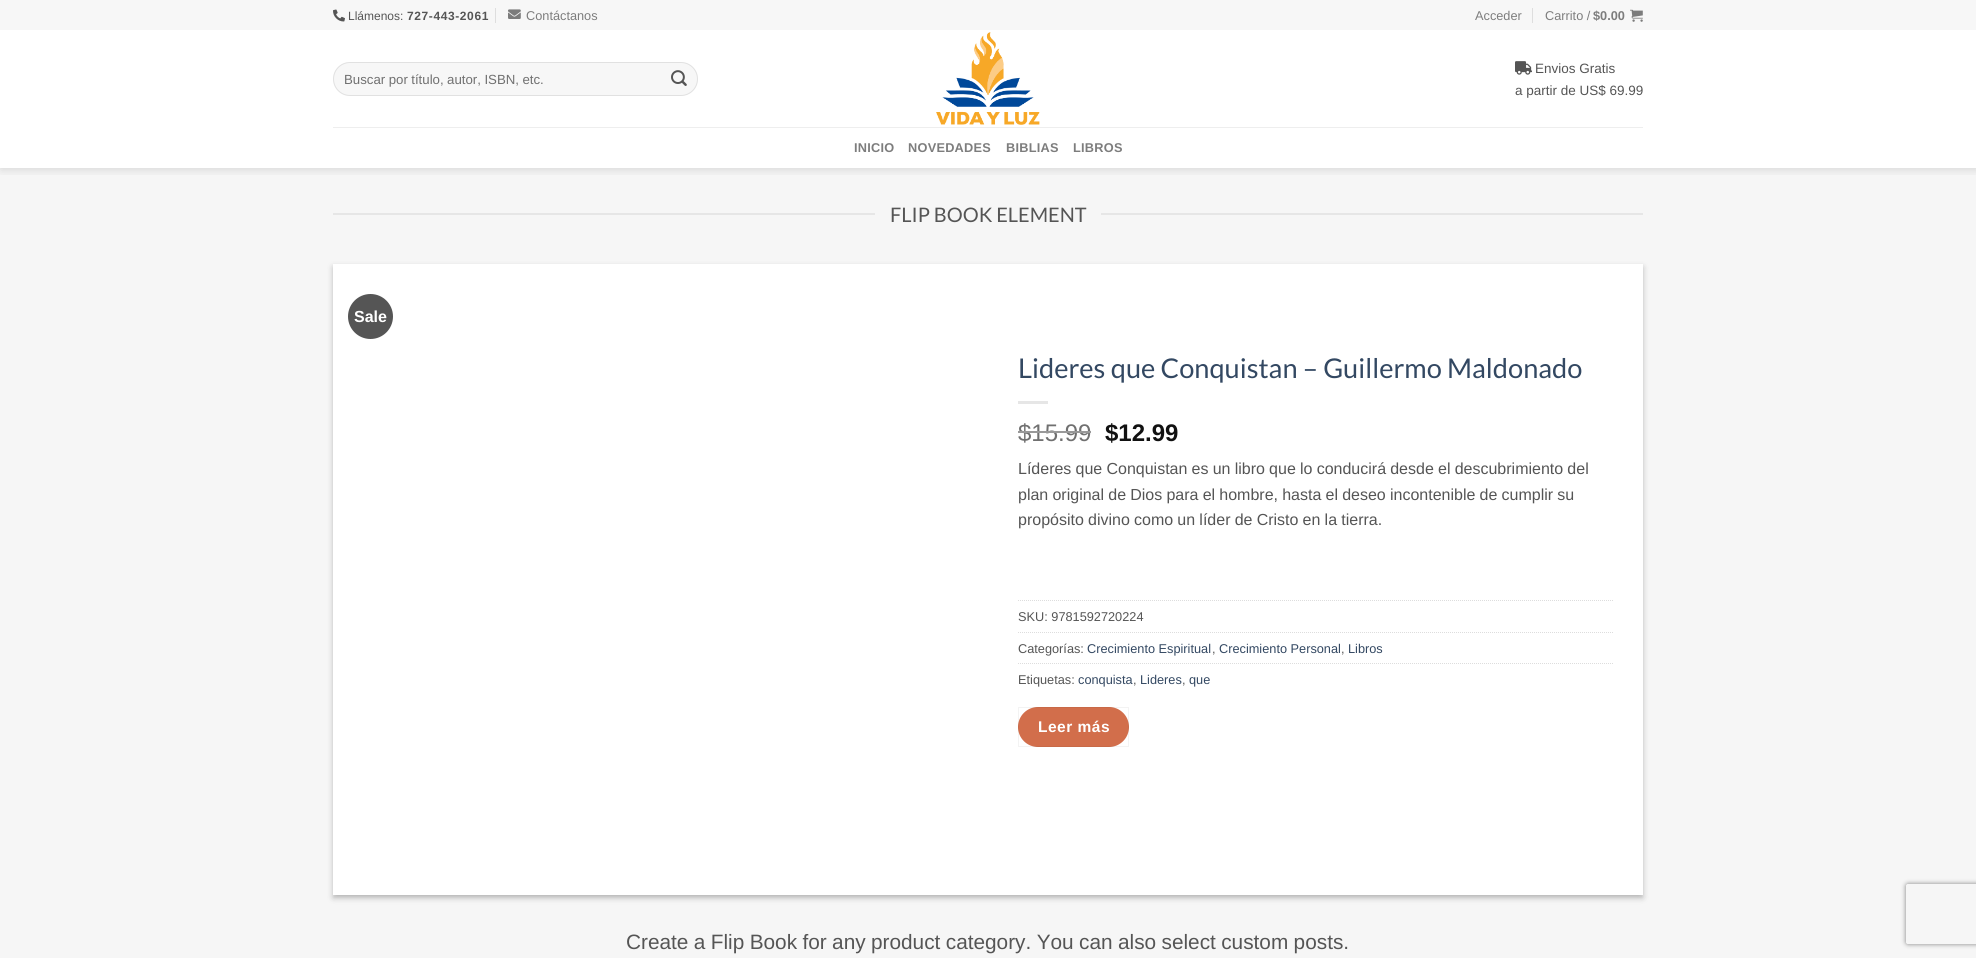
#include <cairo.h>
#include <math.h>
#include <stddef.h>

static cairo_t *c;
static void C(unsigned color){cairo_set_source_rgb(c, (color >> 16) / 255.0, (color >> 8 & 255) / 255.0, (color & 255) / 255.0);}
static void F(const char *family, double size, int italic, int bold){cairo_select_font_face(c, family, italic ? CAIRO_FONT_SLANT_ITALIC : CAIRO_FONT_SLANT_NORMAL,bold ? CAIRO_FONT_WEIGHT_BOLD : CAIRO_FONT_WEIGHT_NORMAL);cairo_set_font_size(c, size);}
static void T(double x, double y, const char *s){cairo_move_to(c, x, y);cairo_show_text(c, s);}
static void L(double x, double y, const char *s, double letter, double word){cairo_move_to(c, x, y);while (*s) {char ch[5] = {0};int n = 0;do ch[n++] = *s++; while ((*s & 0xC0) == 0x80);cairo_show_text(c, ch);cairo_rel_move_to(c, letter + word * (*ch == ' '), 0);}}
static void R(double x, double y, double w, double h){cairo_rectangle(c, x, y, w, h);cairo_fill(c);}
static void Q(double x, double y, double w, double h, double r){cairo_new_sub_path(c);cairo_arc(c, x + w - r, y + h - r, r, 0, M_PI / 2);cairo_arc(c, x + r, y + h - r, r, M_PI / 2, M_PI);cairo_arc(c, x + r, y + r, r, M_PI, 1.5 * M_PI);cairo_arc(c, x + w - r, y + r, r, 1.5 * M_PI, 2 * M_PI);cairo_close_path(c);}
static void S(double x, double y, double w, double h, double r, double blur, double alpha){cairo_push_group_with_content(c, CAIRO_CONTENT_ALPHA);cairo_set_operator(c, CAIRO_OPERATOR_SOURCE);for (int i = 15; i >= -15 && fmin(w, h) + blur * i / 3 > 0; i -= 2) {double e = blur * i / 6;cairo_set_source_rgba(c, 0, 0, 0, alpha * erfc((i - 1) / 8.5) / 2);Q(x - e, y - e, w + 2 * e, h + 2 * e, fmax(0, fmin(r + e + blur * .6, fmin(w, h) / 2 + e)));cairo_fill(c);}cairo_pattern_t *soft = cairo_pop_group(c);cairo_mask(c, soft);cairo_pattern_destroy(soft);}
static void I(const char *path, double x, double y, double w, double h){cairo_surface_t *image = cairo_image_surface_create_from_png(path);cairo_save(c);cairo_set_source_surface(c, image, x, y);cairo_rectangle(c, x, y, w, h);cairo_fill(c);cairo_restore(c);cairo_surface_destroy(image);}
int main(void) {
cairo_surface_t *surface = cairo_image_surface_create(CAIRO_FORMAT_RGB24, 1976, 958);
c = cairo_create(surface);
cairo_font_options_t *options = cairo_font_options_create();
cairo_font_options_set_hint_metrics(options, CAIRO_HINT_METRICS_OFF);
cairo_font_options_set_hint_style(options, CAIRO_HINT_STYLE_NONE);
cairo_set_font_options(c, options);
cairo_set_miter_limit(c, 4);
C(0xffffff);
cairo_paint(c);
C(0xf6f6f6);
R(0,168,1976,790);
cairo_save(c);
cairo_rectangle(c,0,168,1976,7);
cairo_clip(c);
C(0x000000);
S(1,1,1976,168,0,5,.15);
cairo_restore(c);
C(0xf7f7f7);
R(0,0,1976,30);
I("1.png",333,9,12,13);
F("Liberation Sans",12,0,0);
C(0x555555);
T(348,20,"Llámenos:");
F("Liberation Sans",12,0,1);
L(407,20,"727-443-2061",.6,0);
C(0xdedede);
R(495,8,1,15);
I("2.png",508,9,13,10);
F("Liberation Sans",12.75,0,0);
C(0x7d7d7d);
T(526,20,"Contáctanos");
T(1475,20,"Acceder");
C(0xdedede);
R(1532,8,1,15);
C(0x7d7d7d);
T(1545,20,"Carrito /");
F("Liberation Sans",12.75,0,1);
T(1593,20,"$0.00");
I("3.png",1630,9,13,13);
C(0xf7f7f7);
Q(333,62,365,34,17);
cairo_fill(c);
Q(333.5,62.5,364,33,16.5);
cairo_set_source_rgba(c,0,0,0,0.09);
cairo_set_line_width(c,1);
cairo_stroke(c);
F("Liberation Sans",13.25,0,0);
C(0x707070);
L(344,84,"Buscar por título, autor, ISBN, etc.",0,-.25);
I("4.png",671,70,16,16);
I("5.png",936,32,104,93);
I("6.png",1515,61,17,14);
F("Liberation Sans",13.5,0,0);
C(0x555555);
T(1535,73,"Envios Gratis");
T(1515,95,"a partir de US$ 69.99");
C(0xeeeeee);
R(333,127,1310,1);
F("Liberation Sans",12.75,0,1);
C(0x7d7d7d);
L(854,152,"INICIO",.25,0);
L(908,152,"NOVEDADES",.25,0);
L(1006,152,"BIBLIAS",.25,0);
L(1073,152,"LIBROS",.25,0);
C(0xe6e6e6);
R(333,213,542,2);
F("Lato",20,0,0);
C(0x555555);
T(890,222,"FLIP BOOK ELEMENT");
C(0xe6e6e6);
R(1101,213,542,2);
C(0x000000);
S(333,267,1310,631,0,3,.23);
S(337,271,1302,623,0,3,.16);
C(0xffffff);
R(333,264,1310,631);
C(0x555555);
cairo_arc(c,370.5,316.5,22.5,0,2 * M_PI);
cairo_fill(c);
F("Liberation Sans",16,0,1);
C(0xffffff);
T(354,322,"Sale");
F("Lato",27.2,0,0);
C(0x334862);
T(1018,378,"Lideres que Conquistan – Guillermo Maldonado");
C(0xe6e6e6);
R(1018,401,30,3);
F("Liberation Sans",24,0,0);
C(0x707070);
T(1018,441,"$15.99");
C(0x999999);
R(1018,431,73,2);
F("Liberation Sans",24,0,1);
C(0x111111);
T(1105,441,"$12.99");
F("Liberation Sans",16,0,0);
C(0x555555);
L(1018,474,"Líderes que Conquistan es un libro que lo conducirá desde el descubrimiento del",0,-.25);
L(1018,500,"plan original de Dios para el hombre, hasta el deseo incontenible de cumplir su",0,-.25);
L(1018,525,"propósito divino como un líder de Cristo en la tierra.",0,-.25);
cairo_new_path(c);
cairo_move_to(c,1018,600.5);
cairo_line_to(c,1613,600.5);
C(0xdddddd);
cairo_set_dash(c,(double[]){1,1},2,0);
cairo_stroke(c);
F("Liberation Sans",12.75,0,0);
C(0x555555);
T(1018,621,"SKU: 9781592720224");
cairo_new_path(c);
cairo_move_to(c,1018,632.5);
cairo_line_to(c,1613,632.5);
C(0xdddddd);
cairo_stroke(c);
C(0x555555);
T(1018,653,"Categorías:");
C(0x334862);
T(1087,653,"Crecimiento Espiritual");
C(0x555555);
T(1212,653,",");
C(0x334862);
T(1219,653,"Crecimiento Personal");
C(0x555555);
T(1341,653,",");
C(0x334862);
T(1348,653,"Libros");
cairo_new_path(c);
cairo_move_to(c,1018,663.5);
cairo_line_to(c,1613,663.5);
C(0xdddddd);
cairo_stroke(c);
C(0x555555);
T(1018,684,"Etiquetas:");
C(0x334862);
T(1078,684,"conquista");
C(0x555555);
T(1133,684,",");
C(0x334862);
T(1140,684,"Lideres");
C(0x555555);
T(1182,684,",");
C(0x334862);
T(1189,684,"que");
C(0xd26e4b);
Q(1018,707,111,40,20);
cairo_fill(c);
cairo_rectangle(c,1018.5,707.5,110,39);
cairo_set_source_rgba(c,0,0,0,0.05);
cairo_set_dash(c,NULL,0,0);
cairo_stroke(c);
F("Liberation Sans",15.5,0,1);
C(0xffffff);
L(1038,732,"Leer más",.5,0);
F("Liberation Sans",20.8,0,0);
C(0x555555);
L(626,949,"Create a Flip Book for any product category. You can also select custom posts.",0,-.4);
cairo_save(c);
cairo_set_fill_rule(c,CAIRO_FILL_RULE_EVEN_ODD);
cairo_new_path(c);
cairo_move_to(c,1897,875);
cairo_line_to(c,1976,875);
cairo_line_to(c,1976,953);
cairo_line_to(c,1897,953);
cairo_close_path(c);
cairo_move_to(c,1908,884);
cairo_line_to(c,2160,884);
cairo_curve_to(c,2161,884,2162,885,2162,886);
cairo_line_to(c,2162,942);
cairo_curve_to(c,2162,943,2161,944,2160,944);
cairo_line_to(c,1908,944);
cairo_curve_to(c,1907,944,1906,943,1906,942);
cairo_line_to(c,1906,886);
cairo_curve_to(c,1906,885,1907,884,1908,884);
cairo_close_path(c);
cairo_clip(c);
C(0x808080);
S(1906,884,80,60,2,2.5,1);
cairo_restore(c);
cairo_surface_write_to_png(surface, "o.png");
cairo_font_options_destroy(options);
cairo_destroy(c);
cairo_surface_destroy(surface);
return 0;
}
